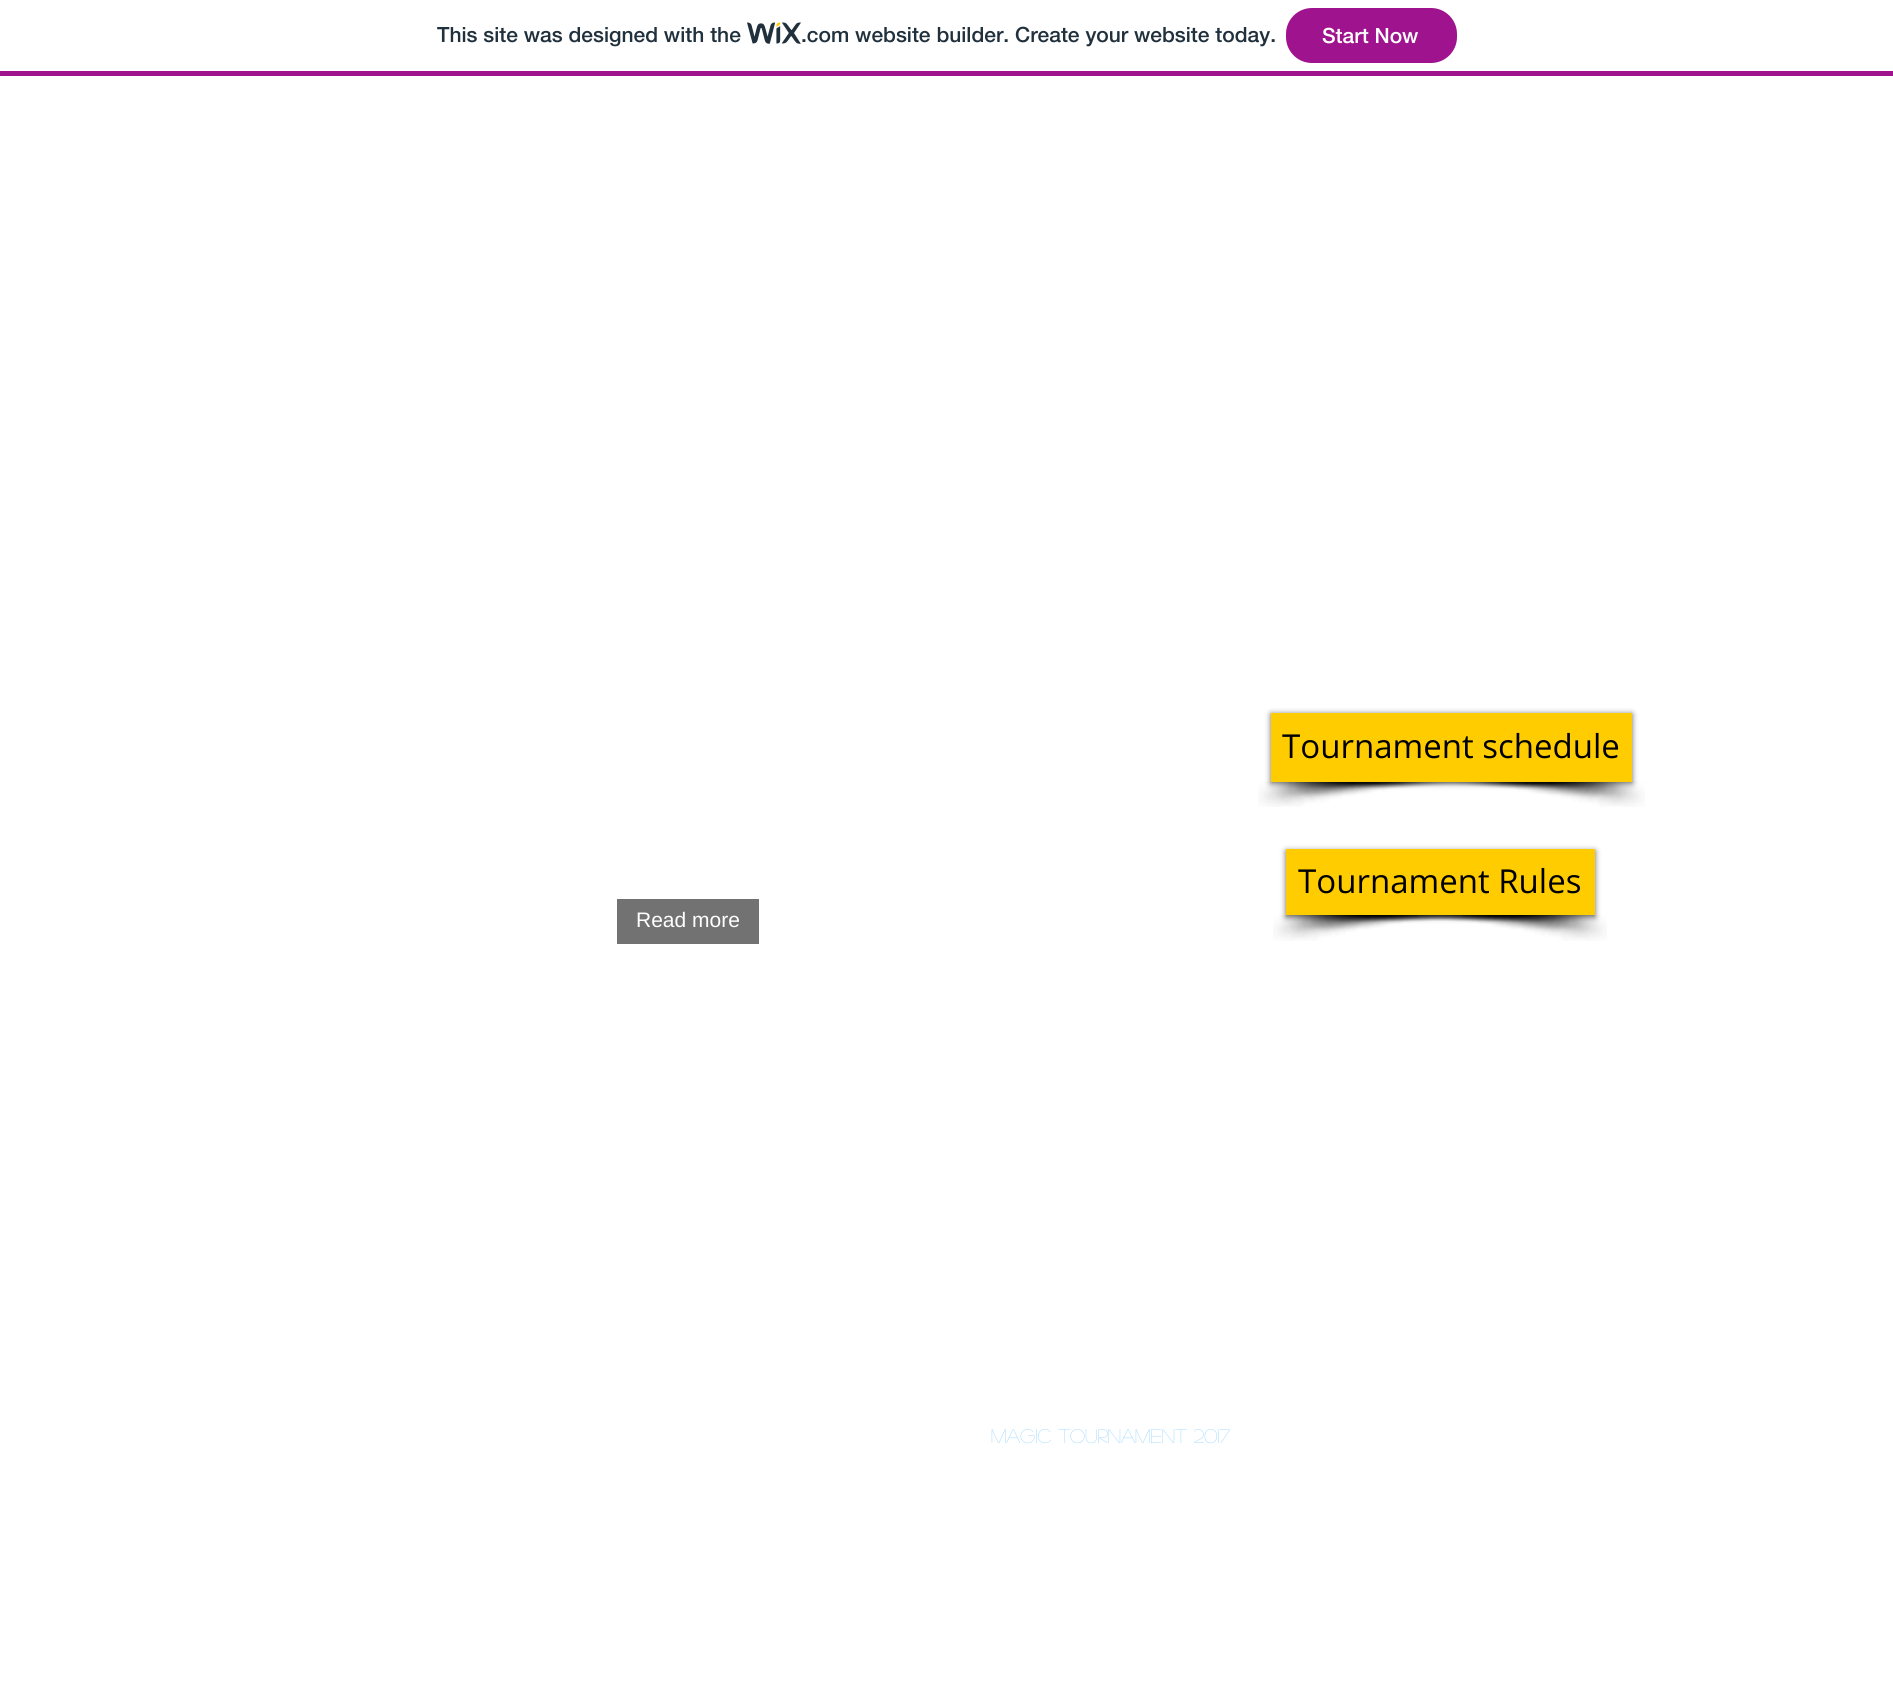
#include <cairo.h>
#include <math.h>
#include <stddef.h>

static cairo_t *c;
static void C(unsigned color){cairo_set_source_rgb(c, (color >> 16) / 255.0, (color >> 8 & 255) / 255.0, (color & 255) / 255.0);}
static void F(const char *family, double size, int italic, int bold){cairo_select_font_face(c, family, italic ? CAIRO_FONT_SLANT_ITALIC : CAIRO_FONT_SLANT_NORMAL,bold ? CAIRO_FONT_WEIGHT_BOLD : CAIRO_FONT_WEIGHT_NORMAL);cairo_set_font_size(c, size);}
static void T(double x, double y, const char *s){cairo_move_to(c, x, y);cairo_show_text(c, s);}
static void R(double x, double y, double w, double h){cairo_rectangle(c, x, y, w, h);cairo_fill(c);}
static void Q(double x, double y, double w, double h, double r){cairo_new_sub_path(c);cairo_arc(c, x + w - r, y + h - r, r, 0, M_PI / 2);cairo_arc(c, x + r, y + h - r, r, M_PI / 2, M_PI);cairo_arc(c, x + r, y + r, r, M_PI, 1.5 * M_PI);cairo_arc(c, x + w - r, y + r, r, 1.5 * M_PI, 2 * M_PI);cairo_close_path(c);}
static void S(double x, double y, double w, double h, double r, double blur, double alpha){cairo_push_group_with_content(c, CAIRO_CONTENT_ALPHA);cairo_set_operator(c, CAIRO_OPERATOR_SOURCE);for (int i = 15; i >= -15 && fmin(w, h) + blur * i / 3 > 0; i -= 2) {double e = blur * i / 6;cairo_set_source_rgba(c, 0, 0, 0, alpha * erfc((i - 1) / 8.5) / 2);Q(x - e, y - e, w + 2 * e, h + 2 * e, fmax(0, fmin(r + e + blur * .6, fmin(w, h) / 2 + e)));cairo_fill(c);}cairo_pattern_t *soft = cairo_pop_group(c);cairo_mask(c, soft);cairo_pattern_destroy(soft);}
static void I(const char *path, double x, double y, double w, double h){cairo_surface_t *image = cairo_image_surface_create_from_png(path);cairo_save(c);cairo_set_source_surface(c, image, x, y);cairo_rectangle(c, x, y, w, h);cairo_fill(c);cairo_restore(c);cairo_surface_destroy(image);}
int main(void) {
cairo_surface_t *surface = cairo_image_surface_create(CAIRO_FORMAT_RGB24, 1893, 1684);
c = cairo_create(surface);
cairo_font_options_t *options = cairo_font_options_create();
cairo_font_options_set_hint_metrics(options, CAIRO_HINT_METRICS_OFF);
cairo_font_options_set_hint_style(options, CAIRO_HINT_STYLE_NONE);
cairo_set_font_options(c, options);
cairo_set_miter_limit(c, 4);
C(0xffffff);
cairo_paint(c);
C(0xa0138e);
R(0,71,1893,5);
F("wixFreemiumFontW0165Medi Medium",21,0,0);
C(0x20303c);
T(437,42,"This site was designed with the");
I("1.png",747,22,54,22);
T(801,42,".com website builder. Create your website today.");
C(0xa0138e);
Q(1287,9,169,53,25);
cairo_fill_preserve(c);
cairo_stroke(c);
C(0xffffff);
T(1322,43,"Start Now");
I("2.png",1258,781,220,26);
I("3.png",1426,781,219,26);
C(0x000000);
S(1271,714,361,69,0,3,.6);
C(0xffcc00);
R(1271,713,361,69);
F("Open Sans",33,0,0);
C(0x000000);
T(1282,758,"Tournament schedule");
I("4.png",1273,915,223,26);
I("5.png",1400,915,207,26);
C(0x000000);
S(1286,851,309,66,0,3,.6);
C(0xffcc00);
R(1286,849,309,66);
C(0x000000);
T(1298,893,"Tournament Rules");
C(0x727272);
R(617,899,142,45);
F("Liberation Sans",21,0,0);
C(0xffffff);
T(636,927,"Read more");
F("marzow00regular",19.5,0,0);
C(0x7fccff);
T(991,1443,"Magic Tournament 2017");
cairo_surface_write_to_png(surface, "o.png");
cairo_font_options_destroy(options);
cairo_destroy(c);
cairo_surface_destroy(surface);
return 0;
}
